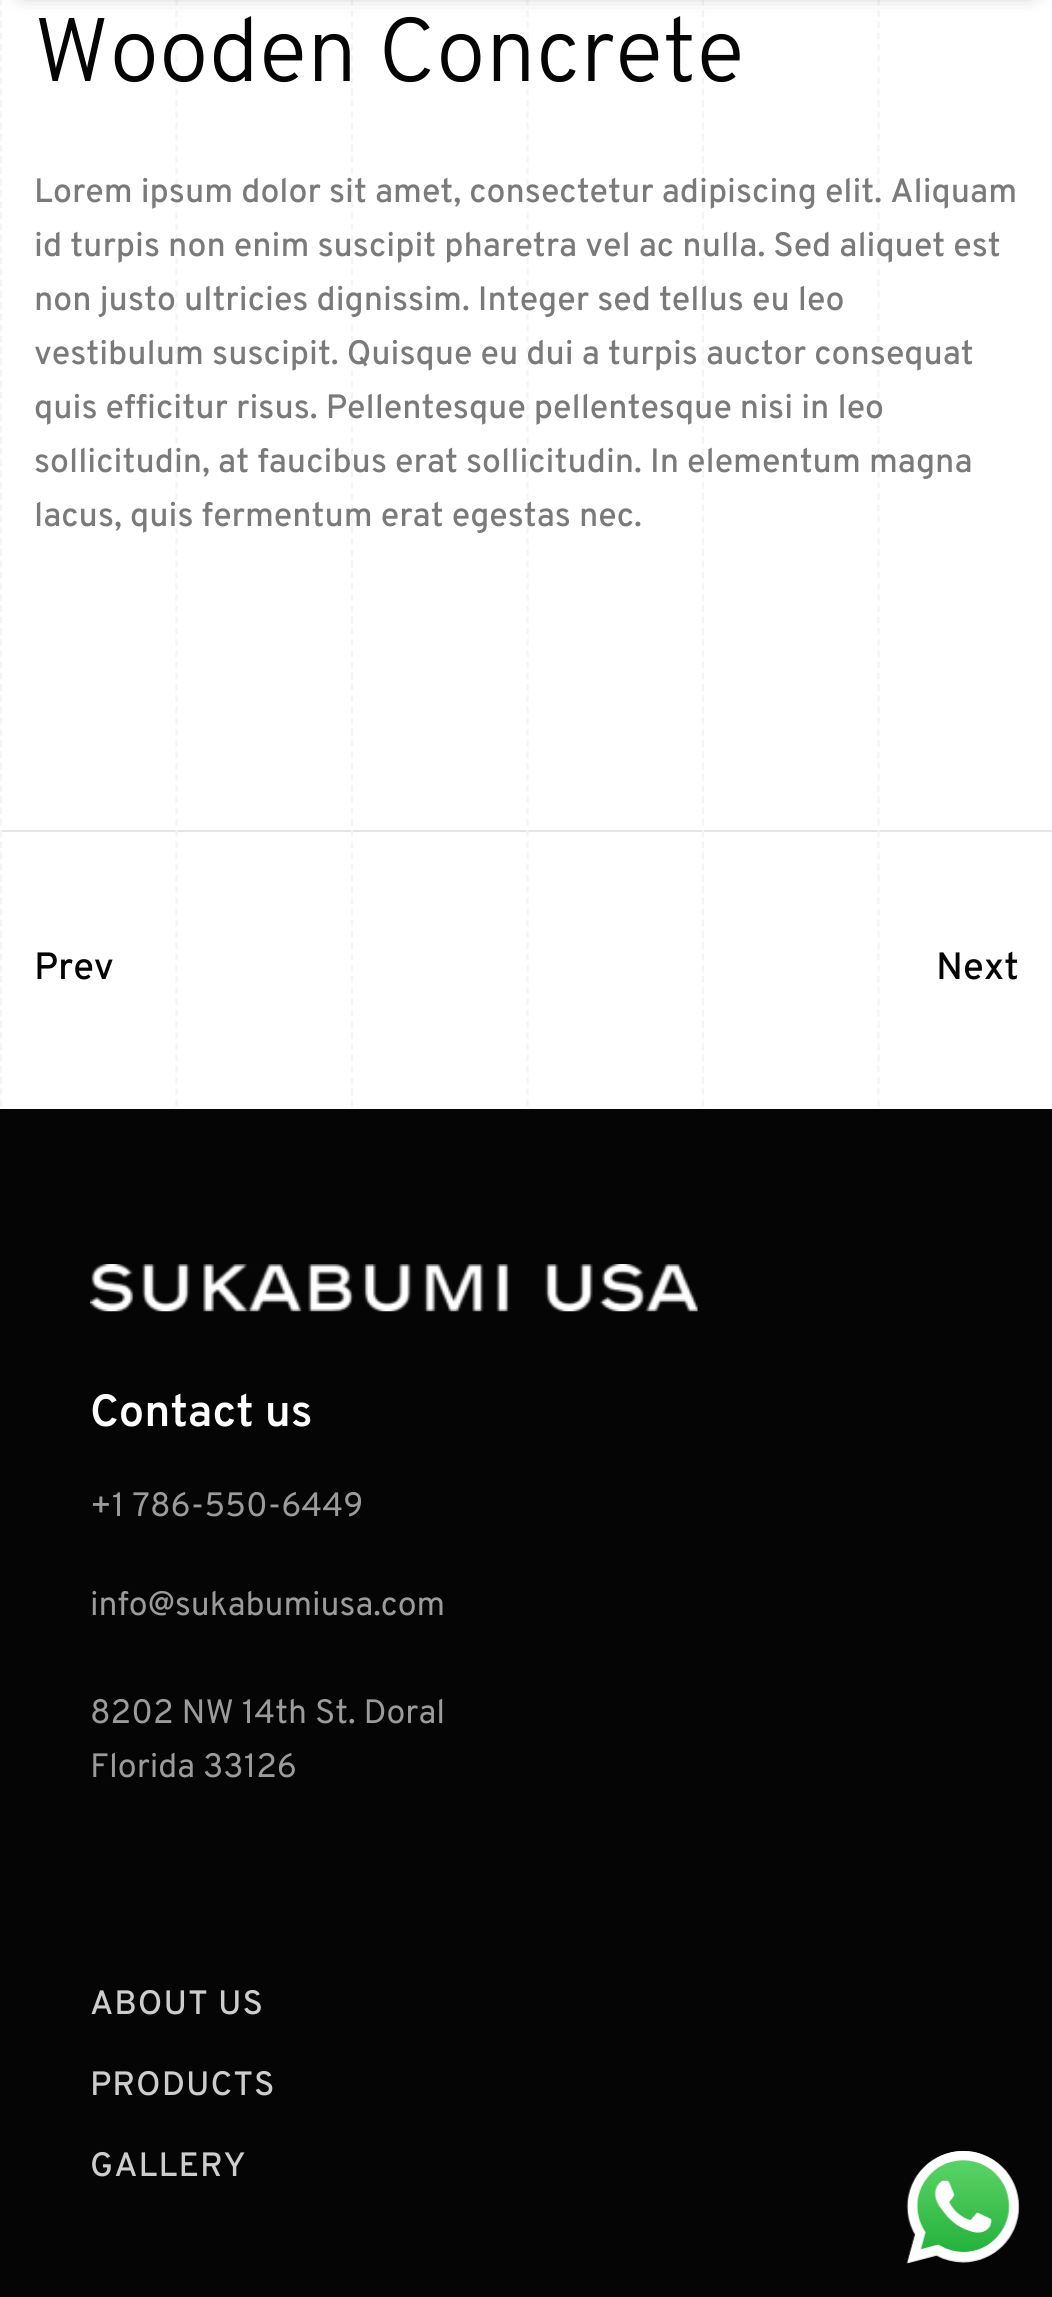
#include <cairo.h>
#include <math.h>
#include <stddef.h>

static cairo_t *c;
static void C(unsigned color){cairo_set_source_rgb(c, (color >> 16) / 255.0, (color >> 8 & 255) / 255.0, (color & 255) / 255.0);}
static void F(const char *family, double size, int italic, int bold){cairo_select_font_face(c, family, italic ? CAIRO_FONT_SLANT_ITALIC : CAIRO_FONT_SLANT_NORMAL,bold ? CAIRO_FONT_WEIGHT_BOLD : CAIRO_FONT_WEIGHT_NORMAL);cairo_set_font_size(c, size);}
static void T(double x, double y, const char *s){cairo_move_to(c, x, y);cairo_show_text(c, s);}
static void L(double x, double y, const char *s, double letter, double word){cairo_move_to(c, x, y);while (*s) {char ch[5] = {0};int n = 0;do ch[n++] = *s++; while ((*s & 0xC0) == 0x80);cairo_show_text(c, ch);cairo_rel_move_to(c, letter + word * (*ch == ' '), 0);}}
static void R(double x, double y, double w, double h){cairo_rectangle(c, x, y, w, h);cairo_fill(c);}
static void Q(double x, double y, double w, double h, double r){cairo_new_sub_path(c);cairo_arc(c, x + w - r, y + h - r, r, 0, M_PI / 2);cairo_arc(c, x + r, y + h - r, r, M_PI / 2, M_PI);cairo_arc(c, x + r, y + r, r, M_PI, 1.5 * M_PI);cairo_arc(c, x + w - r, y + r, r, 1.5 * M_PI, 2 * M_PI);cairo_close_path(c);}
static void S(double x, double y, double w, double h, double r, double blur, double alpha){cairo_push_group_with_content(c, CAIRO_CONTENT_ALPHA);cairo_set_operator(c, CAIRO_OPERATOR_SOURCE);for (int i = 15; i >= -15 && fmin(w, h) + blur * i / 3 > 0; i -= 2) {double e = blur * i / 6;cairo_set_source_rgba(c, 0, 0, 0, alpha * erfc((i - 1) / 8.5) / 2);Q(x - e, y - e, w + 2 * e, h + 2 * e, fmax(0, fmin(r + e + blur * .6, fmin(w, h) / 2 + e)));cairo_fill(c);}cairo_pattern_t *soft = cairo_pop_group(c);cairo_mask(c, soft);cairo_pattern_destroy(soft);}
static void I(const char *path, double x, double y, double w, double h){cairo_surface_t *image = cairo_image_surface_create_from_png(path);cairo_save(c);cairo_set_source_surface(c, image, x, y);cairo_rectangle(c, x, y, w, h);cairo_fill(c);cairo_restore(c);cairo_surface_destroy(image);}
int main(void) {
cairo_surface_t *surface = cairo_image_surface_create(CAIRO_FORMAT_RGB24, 1052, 2297);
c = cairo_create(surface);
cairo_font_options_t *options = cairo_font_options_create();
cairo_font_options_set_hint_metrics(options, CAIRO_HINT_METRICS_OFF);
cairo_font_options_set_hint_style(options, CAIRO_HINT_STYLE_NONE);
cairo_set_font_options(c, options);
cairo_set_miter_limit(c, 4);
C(0xffffff);
cairo_paint(c);
C(0xe5e5e5);
R(0,830,1052,2);
cairo_new_path(c);
cairo_move_to(c,1,-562.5);
cairo_line_to(c,1,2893.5);
C(0xf4f4f4);
cairo_set_line_width(c,2.2);
cairo_set_dash(c,(double[]){6.75,4.48},2,0);
cairo_stroke(c);
cairo_new_path(c);
cairo_move_to(c,176.5,-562.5);
cairo_line_to(c,176.5,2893.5);
cairo_stroke(c);
cairo_new_path(c);
cairo_move_to(c,352,-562.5);
cairo_line_to(c,352,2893.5);
cairo_stroke(c);
cairo_new_path(c);
cairo_move_to(c,527.5,-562.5);
cairo_line_to(c,527.5,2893.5);
cairo_stroke(c);
cairo_new_path(c);
cairo_move_to(c,703,-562.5);
cairo_line_to(c,703,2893.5);
cairo_stroke(c);
cairo_new_path(c);
cairo_move_to(c,878.5,-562.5);
cairo_line_to(c,878.5,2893.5);
cairo_stroke(c);
C(0x000000);
S(23,-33,1008,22,0,11,.5);
F("Overpass Light",90,0,0);
C(0x050505);
T(34,81,"Wooden Concrete");
F("Overpass Medium",33.75,0,0);
C(0x7a7a7a);
T(34,202,"Lorem ipsum dolor sit amet, consectetur adipiscing elit. Aliquam");
T(34,256,"id turpis non enim suscipit pharetra vel ac nulla. Sed aliquet est");
T(34,310,"non justo ultricies dignissim. Integer sed tellus eu leo");
T(34,364,"vestibulum suscipit. Quisque eu dui a turpis auctor consequat");
T(34,418,"quis efficitur risus. Pellentesque pellentesque nisi in leo");
T(34,472,"sollicitudin, at faucibus erat sollicitudin. In elementum magna");
T(34,526,"lacus, quis fermentum erat egestas nec.");
F("Overpass Medium",38,0,0);
C(0x050505);
T(34,979,"Prev");
T(936,979,"Next");
R(0,1109,1052,1188);
I("1.png",90,1264,608,48);
F("Overpass SemiBold",45,0,0);
C(0xffffff);
T(90,1426,"Contact us");
F("Overpass",33.75,0,0);
C(0x9b9b9b);
T(90,1516,"+1 786-550-6449");
T(90,1615,"info@sukabumiusa.com");
T(90,1723,"8202 NW 14th St. Doral");
T(90,1777,"Florida 33126");
F("Overpass Medium",33.75,0,0);
C(0xcdcdcd);
L(90,2014,"ABOUT US",1,0);
L(90,2095,"PRODUCTS",1,0);
L(90,2176,"GALLERY",1,0);
I("2.png",906,2151,114,113);
cairo_surface_write_to_png(surface, "o.png");
cairo_font_options_destroy(options);
cairo_destroy(c);
cairo_surface_destroy(surface);
return 0;
}
